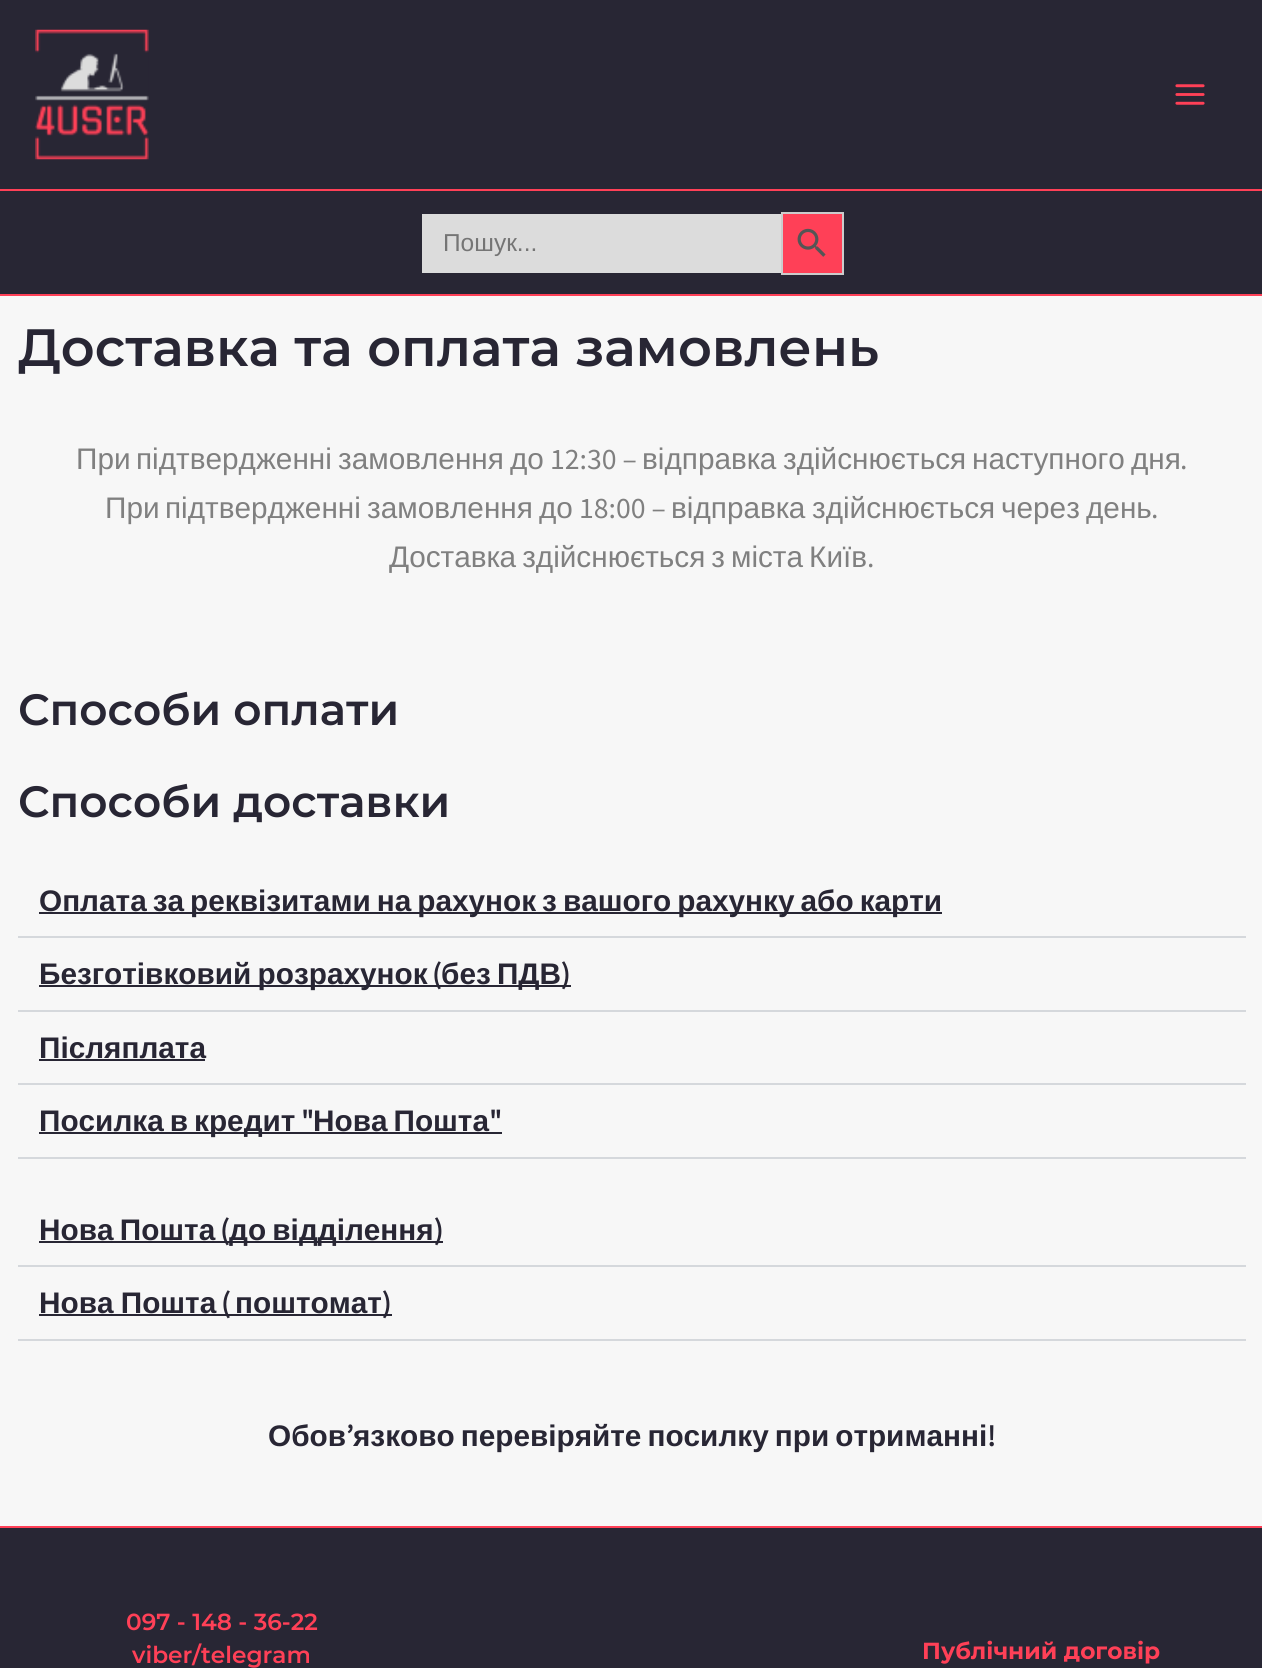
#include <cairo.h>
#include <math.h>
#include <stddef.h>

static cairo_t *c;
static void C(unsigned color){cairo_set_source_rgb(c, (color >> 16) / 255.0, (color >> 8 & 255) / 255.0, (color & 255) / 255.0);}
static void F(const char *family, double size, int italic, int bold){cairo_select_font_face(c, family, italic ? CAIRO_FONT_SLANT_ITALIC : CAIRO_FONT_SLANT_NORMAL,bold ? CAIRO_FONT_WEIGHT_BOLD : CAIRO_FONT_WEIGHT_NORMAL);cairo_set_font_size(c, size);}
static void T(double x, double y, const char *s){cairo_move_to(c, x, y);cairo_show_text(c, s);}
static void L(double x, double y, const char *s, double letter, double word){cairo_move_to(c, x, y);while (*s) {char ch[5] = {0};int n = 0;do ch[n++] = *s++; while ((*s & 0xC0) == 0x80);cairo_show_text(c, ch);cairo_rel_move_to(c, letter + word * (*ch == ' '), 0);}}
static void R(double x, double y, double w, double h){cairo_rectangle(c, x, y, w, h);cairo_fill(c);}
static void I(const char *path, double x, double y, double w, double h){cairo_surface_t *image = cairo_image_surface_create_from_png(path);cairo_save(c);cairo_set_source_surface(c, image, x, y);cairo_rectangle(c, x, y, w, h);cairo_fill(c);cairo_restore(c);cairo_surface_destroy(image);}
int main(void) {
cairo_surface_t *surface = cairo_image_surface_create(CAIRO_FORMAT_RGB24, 1262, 1668);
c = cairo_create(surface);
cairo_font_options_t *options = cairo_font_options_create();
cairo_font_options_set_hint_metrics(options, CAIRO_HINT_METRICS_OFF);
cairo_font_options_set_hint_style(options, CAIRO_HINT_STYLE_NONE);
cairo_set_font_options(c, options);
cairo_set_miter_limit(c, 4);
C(0xf7f7f7);
cairo_paint(c);
C(0x282634);
R(0,0,1262,189);
C(0xff4057);
R(0,189,1262,2);
I("1.png",35,29,114,131);
I("2.png",1175,84,30,21);
C(0x282634);
R(0,191,1262,103);
C(0xff4057);
R(0,294,1262,2);
C(0xdcdcdc);
R(422,214,359,59);
F("Liberation Sans",24.5,0,0);
C(0x757575);
T(443,251,"Пошук...");
C(0xff4057);
cairo_rectangle(c,782,213,61,61);
cairo_fill_preserve(c);
C(0xcccccc);
cairo_stroke(c);
I("3.png",797,228,29,29);
F("Montserrat SemiBold",52.5,0,0);
C(0x282634);
T(18,366,"Доставка та оплата замовлень");
F("Liberation Sans",29.75,0,0);
C(0x808080);
T(76,469,"При");
T(136,469,"підтвердженні");
T(338,469,"замовлення");
T(510,469,"до");
F("Source Sans Pro",29.75,0,0);
T(550,469,"12:30 –");
F("Liberation Sans",29.75,0,0);
T(642,469,"відправка");
T(783,469,"здійснюється");
T(972,469,"наступного");
T(1131,469,"дня");
F("Source Sans Pro",29.75,0,0);
T(1180,469,".");
F("Liberation Sans",29.75,0,0);
T(105,518,"При");
T(165,518,"підтвердженні");
T(367,518,"замовлення");
T(539,518,"до");
F("Source Sans Pro",29.75,0,0);
T(579,518,"18:00 –");
F("Liberation Sans",29.75,0,0);
T(671,518,"відправка");
T(812,518,"здійснюється");
T(1001,518,"через");
T(1086,518,"день");
F("Source Sans Pro",29.75,0,0);
T(1151,518,".");
F("Liberation Sans",29.75,0,0);
L(389,567,"Доставка здійснюється з міста Київ",0,-2.25);
F("Source Sans Pro",29.75,0,0);
T(867,567,".");
F("Montserrat SemiBold",43.75,0,0);
C(0x282634);
T(18,725,"Способи оплати");
T(18,817,"Способи доставки");
C(0xd5d8dc);
R(18,936,1228,2);
C(0x282634);
R(39,912,903,2);
F("Liberation Sans",29.75,0,1);
L(39,911,"Оплата за реквізитами на рахунок з вашого рахунку або карти",0,-2.25);
C(0xd5d8dc);
R(18,1010,1228,2);
C(0x282634);
R(39,985,532,2);
L(39,984,"Безготівковий розрахунок",0,-2);
F("Source Sans Pro",29.75,0,1);
T(432,984,"(");
F("Liberation Sans",29.75,0,1);
L(441,984,"без ПДВ",0,-2);
F("Source Sans Pro",29.75,0,1);
T(561,984,")");
C(0xd5d8dc);
R(18,1083,1228,2);
F("Liberation Sans",29.75,0,1);
C(0x282634);
T(39,1058,"Післяплата");
R(39,1059,166,2);
C(0xd5d8dc);
R(18,1157,1228,2);
C(0x282634);
R(39,1132,463,2);
L(39,1131,"Посилка в кредит",0,-2.25);
F("Source Sans Pro",29.75,0,1);
T(301,1131,"\"");
F("Liberation Sans",29.75,0,1);
L(313,1131,"Нова Пошта",0,-2.25);
F("Source Sans Pro",29.75,0,1);
T(489,1131,"\"");
C(0xd5d8dc);
R(18,1265,1228,2);
F("Liberation Sans",29.75,0,1);
C(0x282634);
L(39,1240,"Нова Пошта",0,-2);
R(39,1241,404,2);
F("Source Sans Pro",29.75,0,1);
T(220,1240,"(");
F("Liberation Sans",29.75,0,1);
L(229,1240,"до відділення",0,-2);
F("Source Sans Pro",29.75,0,1);
T(434,1240,")");
C(0xd5d8dc);
R(18,1339,1228,2);
F("Liberation Sans",29.75,0,1);
C(0x282634);
L(39,1313,"Нова Пошта",0,-1);
R(39,1314,353,2);
F("Source Sans Pro",29.75,0,1);
T(221,1313,"(");
F("Liberation Sans",29.75,0,1);
T(235,1313,"поштомат");
F("Source Sans Pro",29.75,0,1);
T(382,1313,")");
F("Liberation Sans",29.75,0,1);
T(268,1446,"Обов");
F("Source Sans Pro",29.75,0,1);
T(346,1446,"’");
F("Liberation Sans",29.75,0,1);
L(353,1446,"язково перевіряйте посилку при отриманні",0,-2.25);
F("Source Sans Pro",29.75,0,1);
T(987,1446,"!");
R(0,1528,1262,140);
C(0xff4057);
R(0,1526,1262,2);
F("Montserrat SemiBold",23.25,0,0);
T(126,1630,"097 - 148 - 36-22");
T(132,1663,"viber/telegram");
F("Montserrat",23.25,0,1);
T(922,1659,"Публічний договір");
cairo_surface_write_to_png(surface, "o.png");
cairo_font_options_destroy(options);
cairo_destroy(c);
cairo_surface_destroy(surface);
return 0;
}
